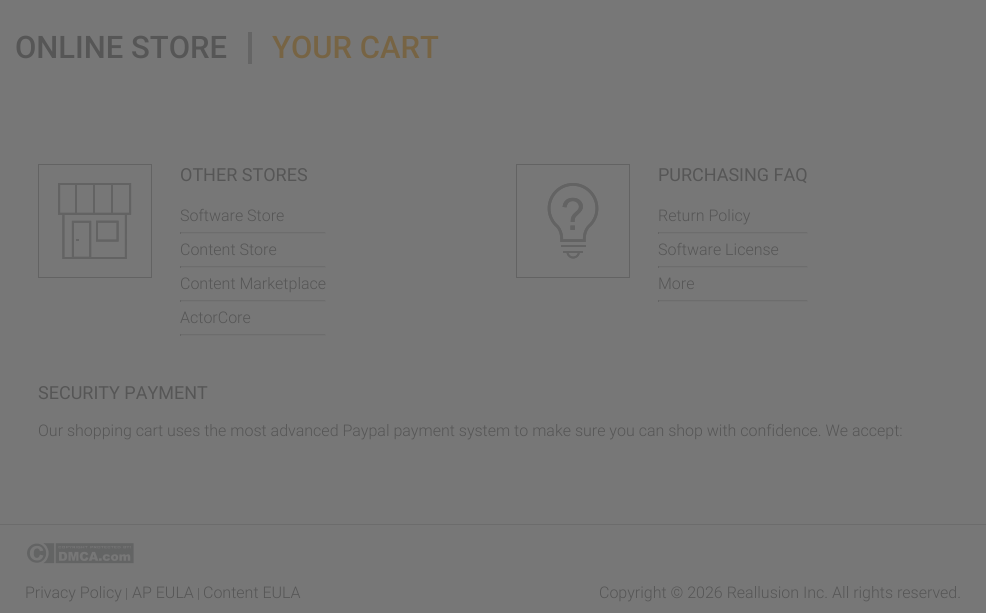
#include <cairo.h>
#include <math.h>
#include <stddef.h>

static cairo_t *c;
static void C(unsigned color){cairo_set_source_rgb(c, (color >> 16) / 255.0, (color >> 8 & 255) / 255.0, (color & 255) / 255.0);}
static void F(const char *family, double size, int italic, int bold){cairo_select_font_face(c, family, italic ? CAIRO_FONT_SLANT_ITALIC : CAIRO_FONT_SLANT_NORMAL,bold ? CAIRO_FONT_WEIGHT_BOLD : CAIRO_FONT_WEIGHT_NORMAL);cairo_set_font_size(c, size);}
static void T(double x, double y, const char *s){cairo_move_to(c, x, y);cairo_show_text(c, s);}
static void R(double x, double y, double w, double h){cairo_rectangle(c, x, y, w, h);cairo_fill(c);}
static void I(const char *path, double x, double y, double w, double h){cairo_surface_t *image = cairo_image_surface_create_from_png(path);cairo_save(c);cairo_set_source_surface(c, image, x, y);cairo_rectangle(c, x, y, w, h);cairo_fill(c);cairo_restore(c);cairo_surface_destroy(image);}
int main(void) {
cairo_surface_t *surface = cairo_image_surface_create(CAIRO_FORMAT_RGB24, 986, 613);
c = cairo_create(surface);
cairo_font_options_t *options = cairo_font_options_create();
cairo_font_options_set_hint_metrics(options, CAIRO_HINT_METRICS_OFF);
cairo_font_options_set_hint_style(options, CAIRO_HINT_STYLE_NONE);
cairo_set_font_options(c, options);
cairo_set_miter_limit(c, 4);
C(0x777777);
cairo_paint(c);
F("Roboto Medium",31,0,0);
C(0x565656);
T(15,58,"ONLINE STORE");
C(0x656565);
R(248,32,4,32);
C(0x776444);
T(272,58,"YOUR CART");
cairo_rectangle(c,38.5,164.5,113,113);
C(0x636363);
cairo_set_line_width(c,1);
cairo_stroke(c);
I("1.png",58,183,74,76);
F("Roboto",18,0,0);
C(0x565656);
T(180,181,"OTHER STORES");
F("Roboto Light",16,0,0);
T(180,221,"Software Store");
C(0x6d6d6d);
R(180,232,146,1);
C(0x747474);
R(325,232,1,2);
R(180,233,146,1);
C(0x646464);
R(180,232,1,2);
C(0x565656);
T(180,255,"Content Store");
C(0x6d6d6d);
R(180,266,146,1);
C(0x747474);
R(325,266,1,2);
R(180,267,146,1);
C(0x646464);
R(180,266,1,2);
C(0x565656);
T(180,289,"Content Marketplace");
C(0x6d6d6d);
R(180,300,146,1);
C(0x747474);
R(325,300,1,2);
R(180,301,146,1);
C(0x646464);
R(180,300,1,2);
C(0x565656);
T(180,323,"ActorCore");
C(0x6d6d6d);
R(180,334,146,1);
C(0x747474);
R(325,334,1,2);
R(180,335,146,1);
C(0x646464);
R(180,334,1,2);
cairo_rectangle(c,516.5,164.5,113,113);
C(0x636363);
cairo_stroke(c);
I("2.png",547,183,52,76);
F("Roboto",18,0,0);
C(0x565656);
T(658,181,"PURCHASING FAQ");
F("Roboto Light",16,0,0);
T(658,221,"Return Policy");
C(0x6d6d6d);
R(658,232,150,1);
C(0x747474);
R(807,232,1,2);
R(658,233,150,1);
C(0x646464);
R(658,232,1,2);
C(0x565656);
T(658,255,"Software License");
C(0x6d6d6d);
R(658,266,150,1);
C(0x747474);
R(807,266,1,2);
R(658,267,150,1);
C(0x646464);
R(658,266,1,2);
C(0x565656);
T(658,289,"More");
C(0x6d6d6d);
R(658,300,150,1);
C(0x747474);
R(807,300,1,2);
R(658,301,150,1);
C(0x646464);
R(658,300,1,2);
F("Roboto",18,0,0);
C(0x565656);
T(38,399,"SECURITY PAYMENT");
F("Roboto Light",16,0,0);
T(38,436,"Our shopping cart uses the most advanced Paypal payment system to make sure you can shop with confidence. We accept:");
C(0x6c6c6c);
R(0,524,986,1);
I("3.png",26,542,108,22);
C(0x565656);
T(25,598,"Privacy Policy");
F("Roboto Light",14,0,0);
T(125,598,"|");
F("Roboto Light",16,0,0);
T(132,598,"AP EULA");
F("Roboto Light",14,0,0);
T(197,598,"|");
F("Roboto Light",16,0,0);
T(203,598,"Content EULA");
T(599,598,"Copyright © 2026 Reallusion Inc. All rights reserved.");
cairo_surface_write_to_png(surface, "o.png");
cairo_font_options_destroy(options);
cairo_destroy(c);
cairo_surface_destroy(surface);
return 0;
}
